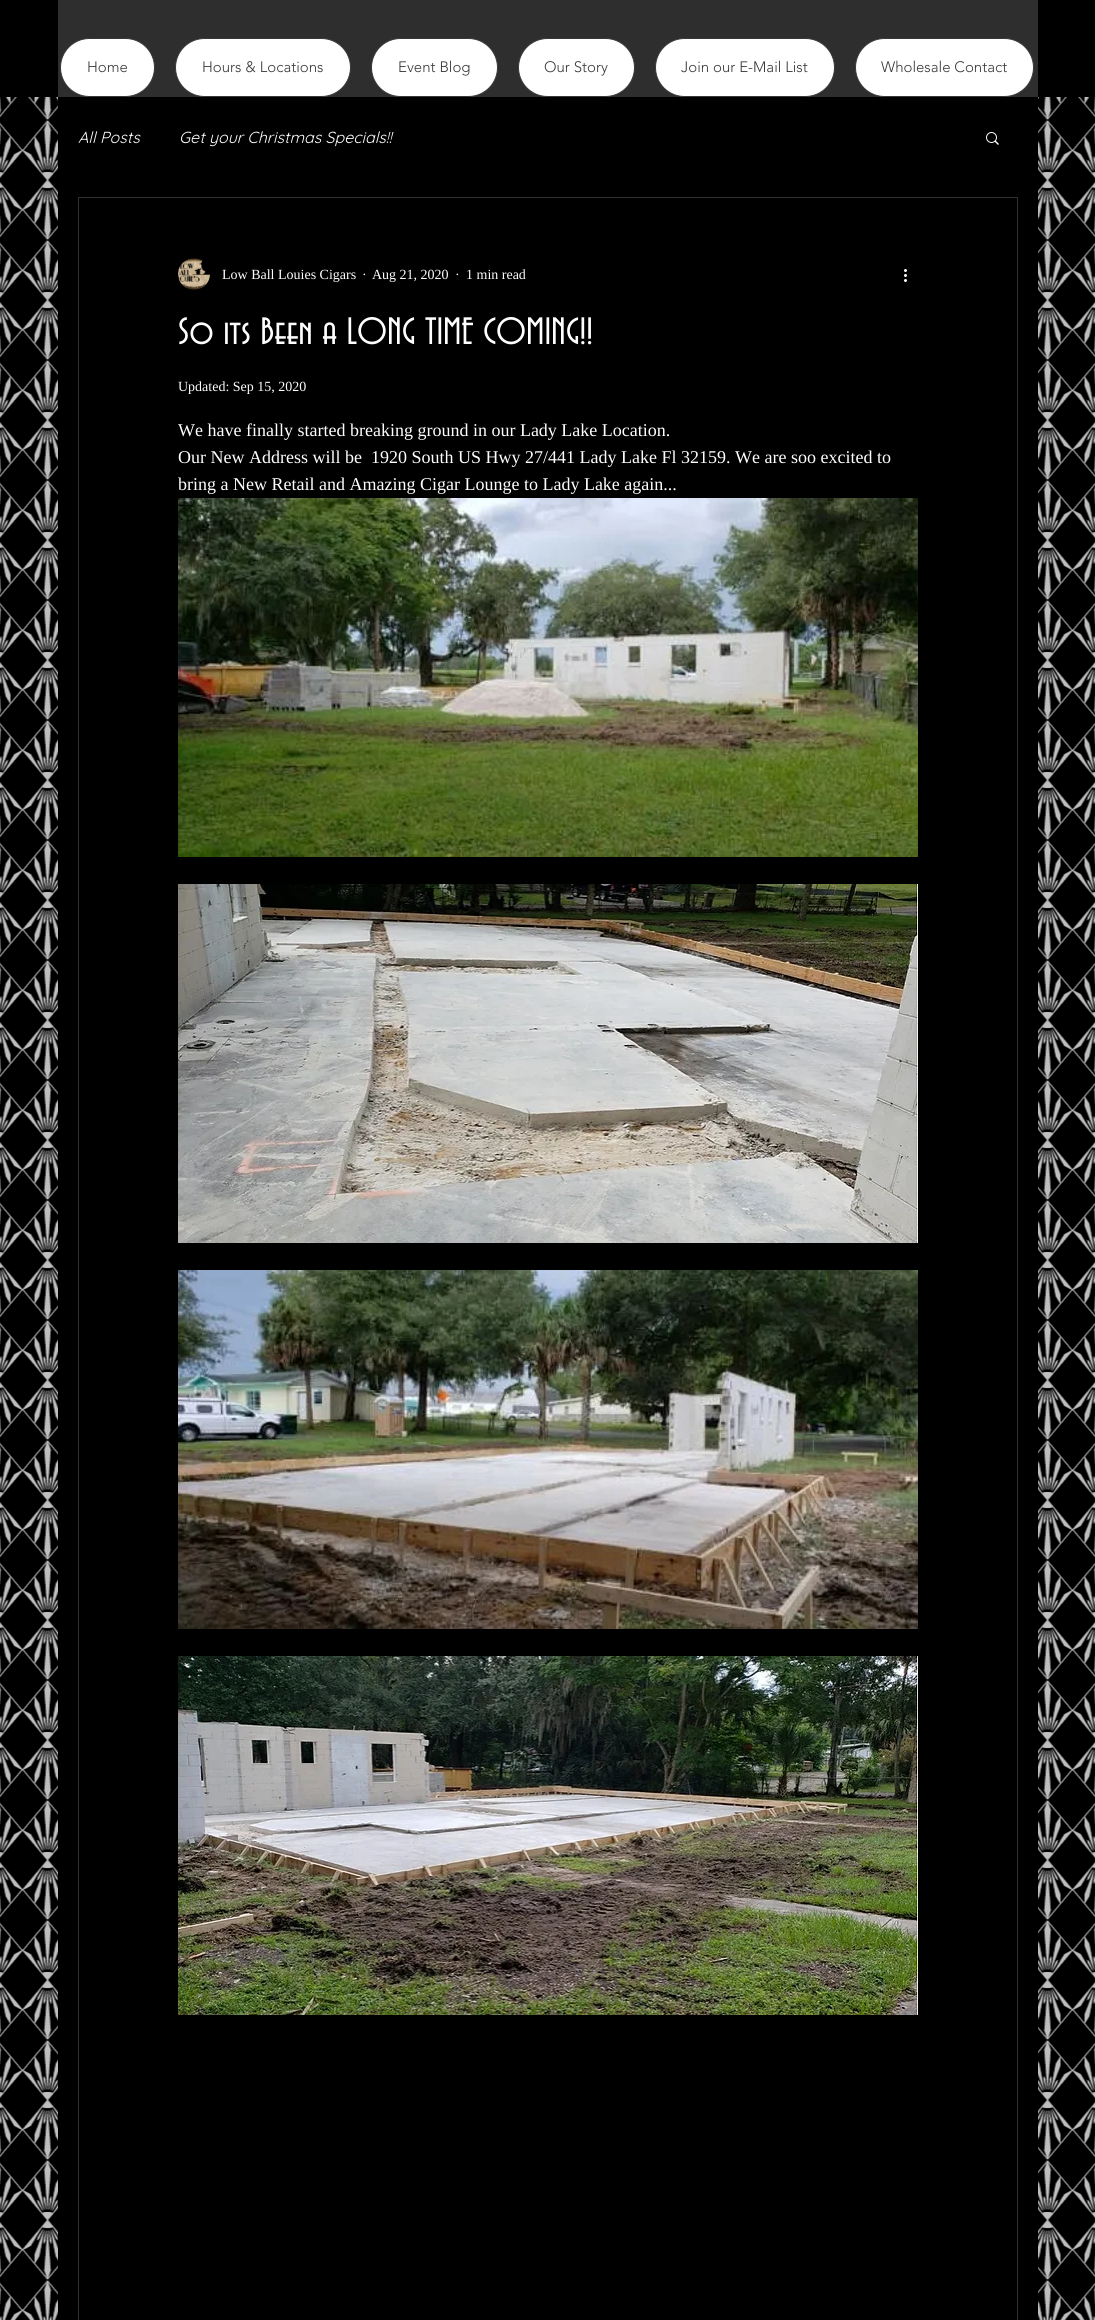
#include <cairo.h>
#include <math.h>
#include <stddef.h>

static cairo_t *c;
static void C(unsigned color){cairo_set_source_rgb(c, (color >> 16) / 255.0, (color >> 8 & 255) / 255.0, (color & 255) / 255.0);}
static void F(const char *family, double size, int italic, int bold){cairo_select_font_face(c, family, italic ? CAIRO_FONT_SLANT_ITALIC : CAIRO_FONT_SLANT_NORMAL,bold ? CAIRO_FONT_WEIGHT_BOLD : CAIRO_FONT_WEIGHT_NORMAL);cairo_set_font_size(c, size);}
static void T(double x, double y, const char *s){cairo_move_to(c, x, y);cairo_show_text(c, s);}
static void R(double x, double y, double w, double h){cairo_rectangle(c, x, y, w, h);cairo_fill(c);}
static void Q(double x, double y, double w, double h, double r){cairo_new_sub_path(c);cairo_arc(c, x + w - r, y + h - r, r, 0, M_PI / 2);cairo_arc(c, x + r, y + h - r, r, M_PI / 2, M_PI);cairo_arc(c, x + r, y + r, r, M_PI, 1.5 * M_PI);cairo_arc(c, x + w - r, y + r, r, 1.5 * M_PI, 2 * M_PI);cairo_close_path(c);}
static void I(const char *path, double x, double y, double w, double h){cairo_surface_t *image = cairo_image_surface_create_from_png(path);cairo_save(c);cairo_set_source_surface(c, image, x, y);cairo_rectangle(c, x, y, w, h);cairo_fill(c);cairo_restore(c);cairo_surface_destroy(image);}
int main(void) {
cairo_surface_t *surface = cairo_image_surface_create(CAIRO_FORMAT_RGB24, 1095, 2320);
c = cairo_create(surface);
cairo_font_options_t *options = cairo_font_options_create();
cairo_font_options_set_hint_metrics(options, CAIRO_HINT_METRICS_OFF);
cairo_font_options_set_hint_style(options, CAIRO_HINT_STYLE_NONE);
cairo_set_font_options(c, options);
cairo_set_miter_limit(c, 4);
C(0x000000);
cairo_paint(c);
C(0x2f2e2e);
R(58,0,980,97);
C(0xffffff);
Q(60.5,38.5,94,58,29);
cairo_fill_preserve(c);
C(0x383838);
cairo_set_line_width(c,1);
cairo_stroke(c);
F("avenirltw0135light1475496 Light",15,0,0);
T(87,72,"Home");
C(0xffffff);
Q(175.5,38.5,175,58,29);
cairo_fill_preserve(c);
C(0x383838);
cairo_stroke(c);
T(202,72,"Hours & Locations");
C(0xffffff);
Q(371.5,38.5,126,58,29);
cairo_fill_preserve(c);
C(0x383838);
cairo_stroke(c);
T(398,72,"Event Blog");
C(0xffffff);
Q(518.5,38.5,116,58,29);
cairo_fill_preserve(c);
C(0x383838);
cairo_stroke(c);
T(544,72,"Our Story");
C(0xffffff);
Q(655.5,38.5,179,58,29);
cairo_fill_preserve(c);
C(0x383838);
cairo_stroke(c);
T(681,72,"Join our E-Mail List");
C(0xffffff);
Q(855.5,38.5,178,58,29);
cairo_fill_preserve(c);
C(0x383838);
cairo_stroke(c);
T(881,72,"Wholesale Contact");
I("8.png",0,97,1095,2223);
C(0x000000);
R(58,97,980,2223);
F("Quicksand",16,1,0);
C(0xffffff);
T(78,143,"All Posts");
T(179,143,"Get your Christmas Specials!!");
I("1.png",986,132,13,13);
cairo_rectangle(c,78.5,197.5,939,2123);
C(0x303030);
cairo_stroke(c);
I("2.png",178,258,32,32);
F("Liberation Serif",14,0,0);
C(0xffffff);
T(222,279,"Low Ball Louies Cigars");
T(362,279,"·");
T(372,279,"Aug 21, 2020");
T(455,279,"·");
T(466,279,"1 min read");
I("3.png",904,269,3,13);
F("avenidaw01",40,0,0);
T(178,344,"So its Been a LONG TIME COMING!!");
F("Liberation Serif",14,0,0);
T(178,391,"Updated: Sep 15, 2020");
F("Liberation Serif",18,0,0);
T(178,436,"We have finally started breaking ground in our Lady Lake Location.");
T(178,463,"Our New Address will be  1920 South US Hwy 27/441 Lady Lake Fl 32159. We are soo excited to");
T(178,490,"bring a New Retail and Amazing Cigar Lounge to Lady Lake again...");
I("4.png",178,498,740,359);
I("5.png",178,884,740,359);
I("6.png",178,1270,740,359);
I("7.png",178,1656,740,359);
cairo_surface_write_to_png(surface, "o.png");
cairo_font_options_destroy(options);
cairo_destroy(c);
cairo_surface_destroy(surface);
return 0;
}
